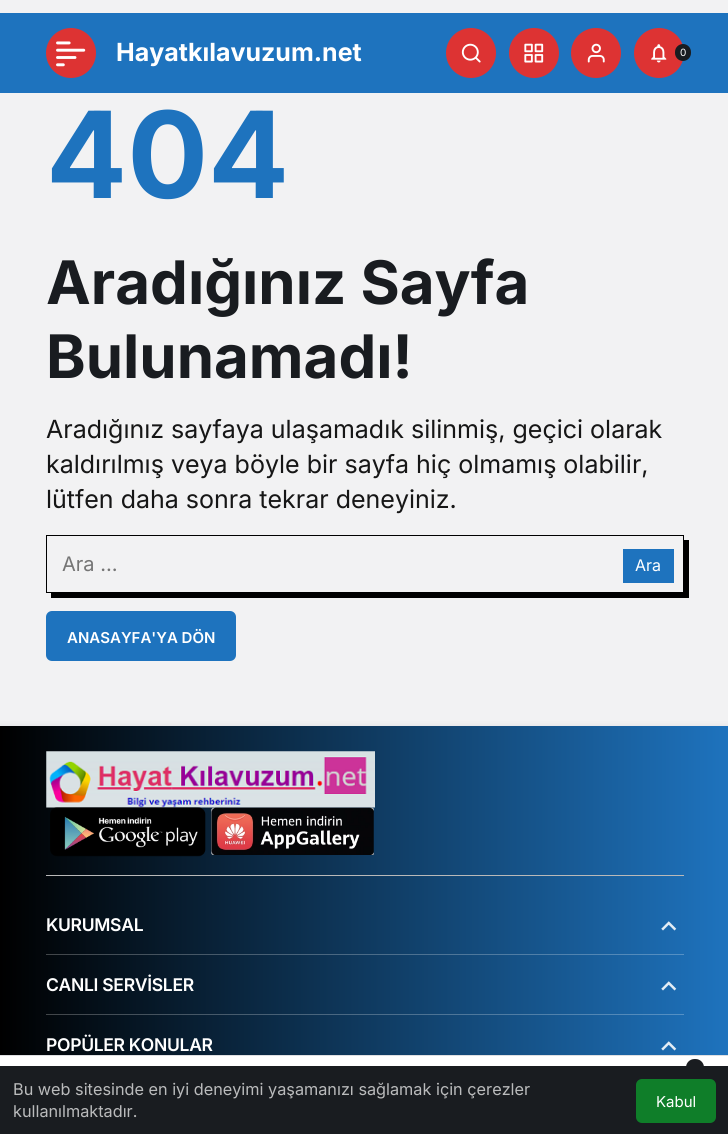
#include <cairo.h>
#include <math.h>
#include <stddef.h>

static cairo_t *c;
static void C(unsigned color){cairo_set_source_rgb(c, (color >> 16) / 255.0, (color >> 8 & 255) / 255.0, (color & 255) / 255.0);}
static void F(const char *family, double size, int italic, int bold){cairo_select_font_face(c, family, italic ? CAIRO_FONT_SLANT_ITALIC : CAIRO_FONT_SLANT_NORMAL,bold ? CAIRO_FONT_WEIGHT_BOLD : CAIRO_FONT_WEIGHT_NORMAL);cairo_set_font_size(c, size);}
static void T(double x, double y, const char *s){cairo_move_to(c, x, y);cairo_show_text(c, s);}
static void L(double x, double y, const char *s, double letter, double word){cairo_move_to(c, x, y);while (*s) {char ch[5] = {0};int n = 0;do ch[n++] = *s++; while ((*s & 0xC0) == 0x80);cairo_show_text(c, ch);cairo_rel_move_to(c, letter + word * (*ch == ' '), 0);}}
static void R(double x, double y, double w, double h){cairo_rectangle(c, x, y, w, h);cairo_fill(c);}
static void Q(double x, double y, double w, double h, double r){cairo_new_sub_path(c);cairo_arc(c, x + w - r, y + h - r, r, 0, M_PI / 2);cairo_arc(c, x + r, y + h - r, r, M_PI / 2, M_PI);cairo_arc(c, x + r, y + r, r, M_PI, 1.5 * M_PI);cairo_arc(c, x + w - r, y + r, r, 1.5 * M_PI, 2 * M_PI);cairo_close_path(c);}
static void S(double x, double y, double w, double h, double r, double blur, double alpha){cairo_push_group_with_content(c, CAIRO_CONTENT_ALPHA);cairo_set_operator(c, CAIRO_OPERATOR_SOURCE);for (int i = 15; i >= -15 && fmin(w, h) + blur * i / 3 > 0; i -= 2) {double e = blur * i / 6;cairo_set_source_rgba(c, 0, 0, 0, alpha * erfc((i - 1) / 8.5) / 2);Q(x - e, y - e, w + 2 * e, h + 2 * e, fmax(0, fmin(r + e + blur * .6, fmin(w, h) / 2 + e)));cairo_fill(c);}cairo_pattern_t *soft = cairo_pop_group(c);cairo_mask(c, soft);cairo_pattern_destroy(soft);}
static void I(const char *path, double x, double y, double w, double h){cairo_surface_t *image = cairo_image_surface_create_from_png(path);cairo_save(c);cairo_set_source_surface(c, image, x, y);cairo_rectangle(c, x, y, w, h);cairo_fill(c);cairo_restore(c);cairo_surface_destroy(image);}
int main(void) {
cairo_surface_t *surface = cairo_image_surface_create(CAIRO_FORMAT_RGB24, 728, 1134);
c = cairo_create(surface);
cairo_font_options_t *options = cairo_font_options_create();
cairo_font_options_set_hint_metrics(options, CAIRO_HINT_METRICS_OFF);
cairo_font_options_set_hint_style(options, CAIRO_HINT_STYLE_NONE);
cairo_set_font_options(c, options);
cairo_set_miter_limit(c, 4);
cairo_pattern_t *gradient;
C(0xf2f2f3);
cairo_paint(c);
C(0x1e73be);
R(0,13,728,80);
C(0xdd3333);
cairo_arc(c,71,53,25,0,2 * M_PI);
cairo_fill(c);
I("1.png",56,41,30,26);
F("Inter",25,0,1);
C(0xffffff);
T(116,61,"Hayatkılavuzum.net");
C(0xdd3333);
cairo_new_path(c);
cairo_arc(c,471,53,25,0,2 * M_PI);
cairo_fill(c);
I("2.png",461,43,20,20);
cairo_arc(c,534,53,25,0,2 * M_PI);
cairo_fill(c);
I("3.png",524,43,20,20);
cairo_arc(c,596,53,25,0,2 * M_PI);
cairo_fill(c);
I("4.png",587,43,18,20);
cairo_arc(c,659,53,25,0,2 * M_PI);
cairo_fill(c);
I("5.png",651,44,16,19);
C(0x191c20);
Q(675,44,16,17,8);
cairo_fill(c);
F("Inter",10,0,0);
C(0xffffff);
T(680,56,"0");
F("Inter",120,0,1);
C(0x1e73be);
T(46,198,"404");
F("Inter",60,0,1);
C(0x191c20);
T(46,304,"Aradığınız Sayfa");
T(46,378,"Bulunamadı!");
F("Inter",25,0,0);
C(0x161616);
T(46,438,"Aradığınız sayfaya ulaşamadık silinmiş, geçici olarak");
T(46,473,"kaldırılmış veya böyle bir sayfa hiç olmamış olabilir,");
T(46,508,"lütfen daha sonra tekrar deneyiniz.");
C(0x000000);
cairo_new_path(c);
cairo_move_to(c,51,592);
cairo_line_to(c,51,598);
cairo_line_to(c,689,598);
cairo_line_to(c,689,540);
cairo_line_to(c,684,540);
cairo_line_to(c,684,592);
cairo_close_path(c);
cairo_fill(c);
cairo_rectangle(c,46.5,535.5,637,57);
cairo_set_line_width(c,1);
cairo_stroke(c);
F("Inter",20,0,0);
C(0x757575);
T(62,571,"Ara …");
C(0x1e73be);
R(623,549,51,34);
F("Inter",16,0,0);
C(0xffffff);
T(635,571,"Ara");
C(0x1e73be);
Q(46,611,190,50,6);
cairo_fill(c);
F("Inter SemiBold",15,0,0);
C(0xffffff);
T(67,643,"ANASAYFA'YA DÖN");
C(0x32353d);
S(0,726,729,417,0,3,.1);
gradient = cairo_pattern_create_linear(0,988,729,988);
cairo_pattern_add_color_stop_rgba(gradient,0,0,0,0,1);
cairo_pattern_add_color_stop_rgba(gradient,1,0.118,0.451,0.745,1);
cairo_set_source(c,gradient);
cairo_pattern_destroy(gradient);
R(0,726,728,329);
gradient = cairo_pattern_create_linear(0,988,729,988);
cairo_pattern_add_color_stop_rgba(gradient,0,0.251,0.251,0.251,1);
cairo_pattern_add_color_stop_rgba(gradient,1,0.337,0.588,0.808,1);
cairo_set_source(c,gradient);
cairo_pattern_destroy(gradient);
R(46,1014,638,1);
R(46,954,638,1);
I("6.png",46,751,329,57);
I("7.png",50,807,156,50);
I("8.png",211,807,163,48);
C(0xb9b9b9);
R(46,875,638,1);
F("Inter SemiBold",17.5,0,0);
C(0xffffff);
L(46,931,"KURUMSAL",-.3,0);
I("9.png",661,921,16,10);
L(46,991,"CANLI SERVİSLER",-.3,0);
I("9.png",661,981,16,10);
L(46,1051,"POPÜLER KONULAR",-.3,0);
I("9.png",661,1041,16,10);
R(0,1056,728,10);
C(0x191c20);
Q(686,1059,18,17,8.5);
cairo_fill(c);
R(0,1066,728,68);
F("Inter",16.25,0,0);
C(0xbabbbc);
T(13,1095,"Bu web sitesinde en iyi deneyimi yaşamanızı sağlamak için çerezler");
T(13,1117,"kullanılmaktadır.");
C(0x0f7e29);
Q(636,1079,80,44,6);
cairo_fill(c);
F("Inter",15,0,0);
C(0xffffff);
T(656,1107,"Kabul");
C(0xdedfe2);
R(0,1055,728,1);
cairo_surface_write_to_png(surface, "o.png");
cairo_font_options_destroy(options);
cairo_destroy(c);
cairo_surface_destroy(surface);
return 0;
}
